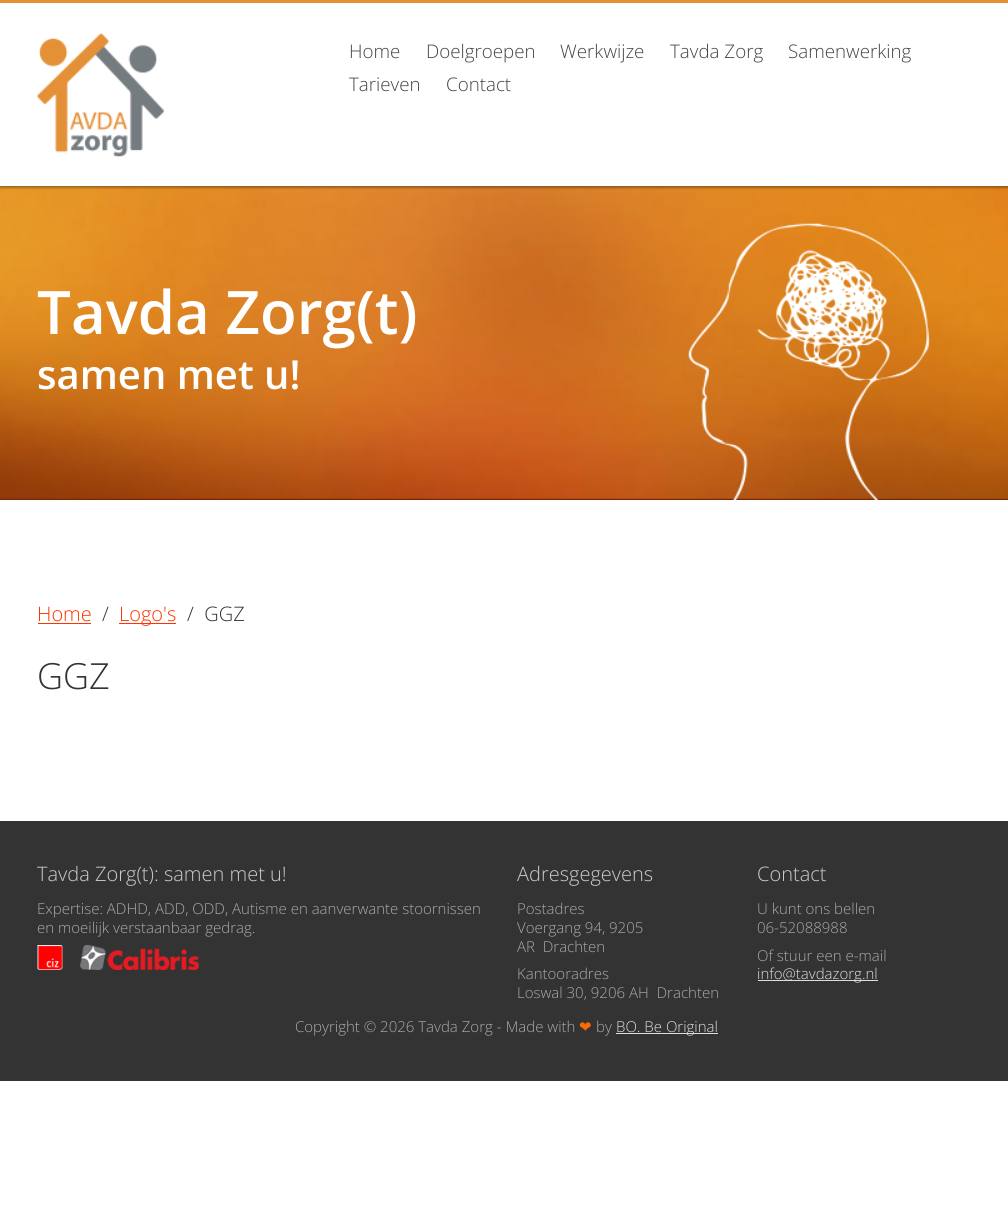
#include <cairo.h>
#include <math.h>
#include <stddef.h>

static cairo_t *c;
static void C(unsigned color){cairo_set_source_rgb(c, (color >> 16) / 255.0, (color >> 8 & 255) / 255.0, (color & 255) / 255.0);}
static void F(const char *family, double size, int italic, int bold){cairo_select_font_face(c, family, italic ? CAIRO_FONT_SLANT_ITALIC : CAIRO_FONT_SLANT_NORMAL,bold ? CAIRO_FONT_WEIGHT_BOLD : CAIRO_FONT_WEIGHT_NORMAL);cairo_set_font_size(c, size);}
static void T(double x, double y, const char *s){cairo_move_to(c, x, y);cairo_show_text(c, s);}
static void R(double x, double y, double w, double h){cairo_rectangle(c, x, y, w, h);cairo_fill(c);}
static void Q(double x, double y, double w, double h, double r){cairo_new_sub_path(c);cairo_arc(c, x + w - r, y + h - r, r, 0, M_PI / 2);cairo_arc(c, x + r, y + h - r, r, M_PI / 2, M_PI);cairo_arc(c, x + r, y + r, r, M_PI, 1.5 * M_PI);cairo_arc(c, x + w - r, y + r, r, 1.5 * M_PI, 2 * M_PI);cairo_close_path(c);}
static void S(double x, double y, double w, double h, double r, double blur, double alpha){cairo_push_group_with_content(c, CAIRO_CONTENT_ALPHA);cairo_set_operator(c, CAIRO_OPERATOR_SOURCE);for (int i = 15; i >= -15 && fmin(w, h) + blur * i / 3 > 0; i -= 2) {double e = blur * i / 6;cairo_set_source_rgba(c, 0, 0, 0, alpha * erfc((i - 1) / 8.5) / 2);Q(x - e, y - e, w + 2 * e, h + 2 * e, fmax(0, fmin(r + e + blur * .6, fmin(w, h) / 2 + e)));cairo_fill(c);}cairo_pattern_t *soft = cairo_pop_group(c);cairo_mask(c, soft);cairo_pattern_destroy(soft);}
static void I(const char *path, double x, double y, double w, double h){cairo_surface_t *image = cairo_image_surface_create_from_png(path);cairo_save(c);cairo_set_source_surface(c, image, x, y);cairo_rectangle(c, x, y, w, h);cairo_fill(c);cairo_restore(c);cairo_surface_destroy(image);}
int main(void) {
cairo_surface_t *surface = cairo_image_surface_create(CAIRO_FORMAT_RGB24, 1008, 1213);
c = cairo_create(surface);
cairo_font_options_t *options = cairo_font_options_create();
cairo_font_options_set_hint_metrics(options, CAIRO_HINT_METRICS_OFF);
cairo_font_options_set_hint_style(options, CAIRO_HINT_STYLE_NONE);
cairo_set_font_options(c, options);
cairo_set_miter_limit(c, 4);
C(0xffffff);
cairo_paint(c);
C(0x7c2605);
R(0,498,1008,2);
I("1.png",0,186,1008,313);
C(0x000000);
S(0,1,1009,187,0,1,.3);
C(0xffffff);
R(0,3,1008,183);
C(0xe49037);
R(0,0,1008,3);
I("2.png",37,33,127,124);
F("Open Sans Light",18.75,0,0);
C(0x444444);
T(349,58,"Home");
T(426,58,"Doelgroepen");
T(560,58,"Werkwijze");
T(670,58,"Tavda Zorg");
T(788,58,"Samenwerking");
T(349,91,"Tarieven");
T(446,91,"Contact");
F("Open Sans SemiBold",60,0,0);
C(0xffffff);
T(37,334,"Tavda Zorg(t)");
F("Open Sans SemiBold",40,0,0);
T(37,389,"samen met u!");
I("3.png",688,223,242,277);
F("Open Sans Light",20,0,0);
C(0xff3300);
T(37,621,"Home");
R(38,623,53,1);
C(0x333333);
T(102,621,"/");
C(0xff3300);
R(119,623,57,1);
T(119,621,"Logo's");
C(0x333333);
T(187,621,"/  GGZ");
F("Open Sans Light",36,0,0);
T(37,689,"GGZ");
R(0,821,1008,260);
F("Open Sans Light",20,0,0);
C(0xcccccc);
T(37,881,"Tavda Zorg(t): samen met u!");
F("Open Sans Light",15,0,0);
C(0xaaaaaa);
T(37,914,"Expertise: ADHD, ADD, ODD, Autisme en aanverwante stoornissen");
T(37,933,"en moeilijk verstaanbaar gedrag.");
I("4.png",37,945,26,25);
I("5.png",80,945,119,25);
F("Open Sans Light",20,0,0);
C(0xcccccc);
T(517,881,"Adresgegevens");
F("Open Sans Light",15,0,0);
C(0xaaaaaa);
T(517,914,"Postadres");
T(517,933,"Voergang 94, 9205");
T(517,952,"AR  Drachten");
T(517,979,"Kantooradres");
T(517,998,"Loswal 30, 9206 AH  Drachten");
F("Open Sans Light",20,0,0);
C(0xcccccc);
T(757,881,"Contact");
F("Open Sans Light",15,0,0);
C(0xaaaaaa);
T(757,914,"U kunt ons bellen");
T(757,933,"06-52088988");
T(757,961,"Of stuur een e-mail");
C(0xdddddd);
R(758,980,120,1);
T(757,979,"info@tavdazorg.nl");
C(0xaaaaaa);
T(295,1032,"Copyright © 2026 Tavda Zorg - Made with");
F("DejaVu Sans",15,0,0);
C(0xfe6a00);
T(579,1032,"❤");
F("Open Sans Light",15,0,0);
C(0xaaaaaa);
T(596,1032,"by");
C(0xdddddd);
R(616,1033,102,1);
T(616,1032,"BO. Be Original");
cairo_surface_write_to_png(surface, "o.png");
cairo_font_options_destroy(options);
cairo_destroy(c);
cairo_surface_destroy(surface);
return 0;
}
